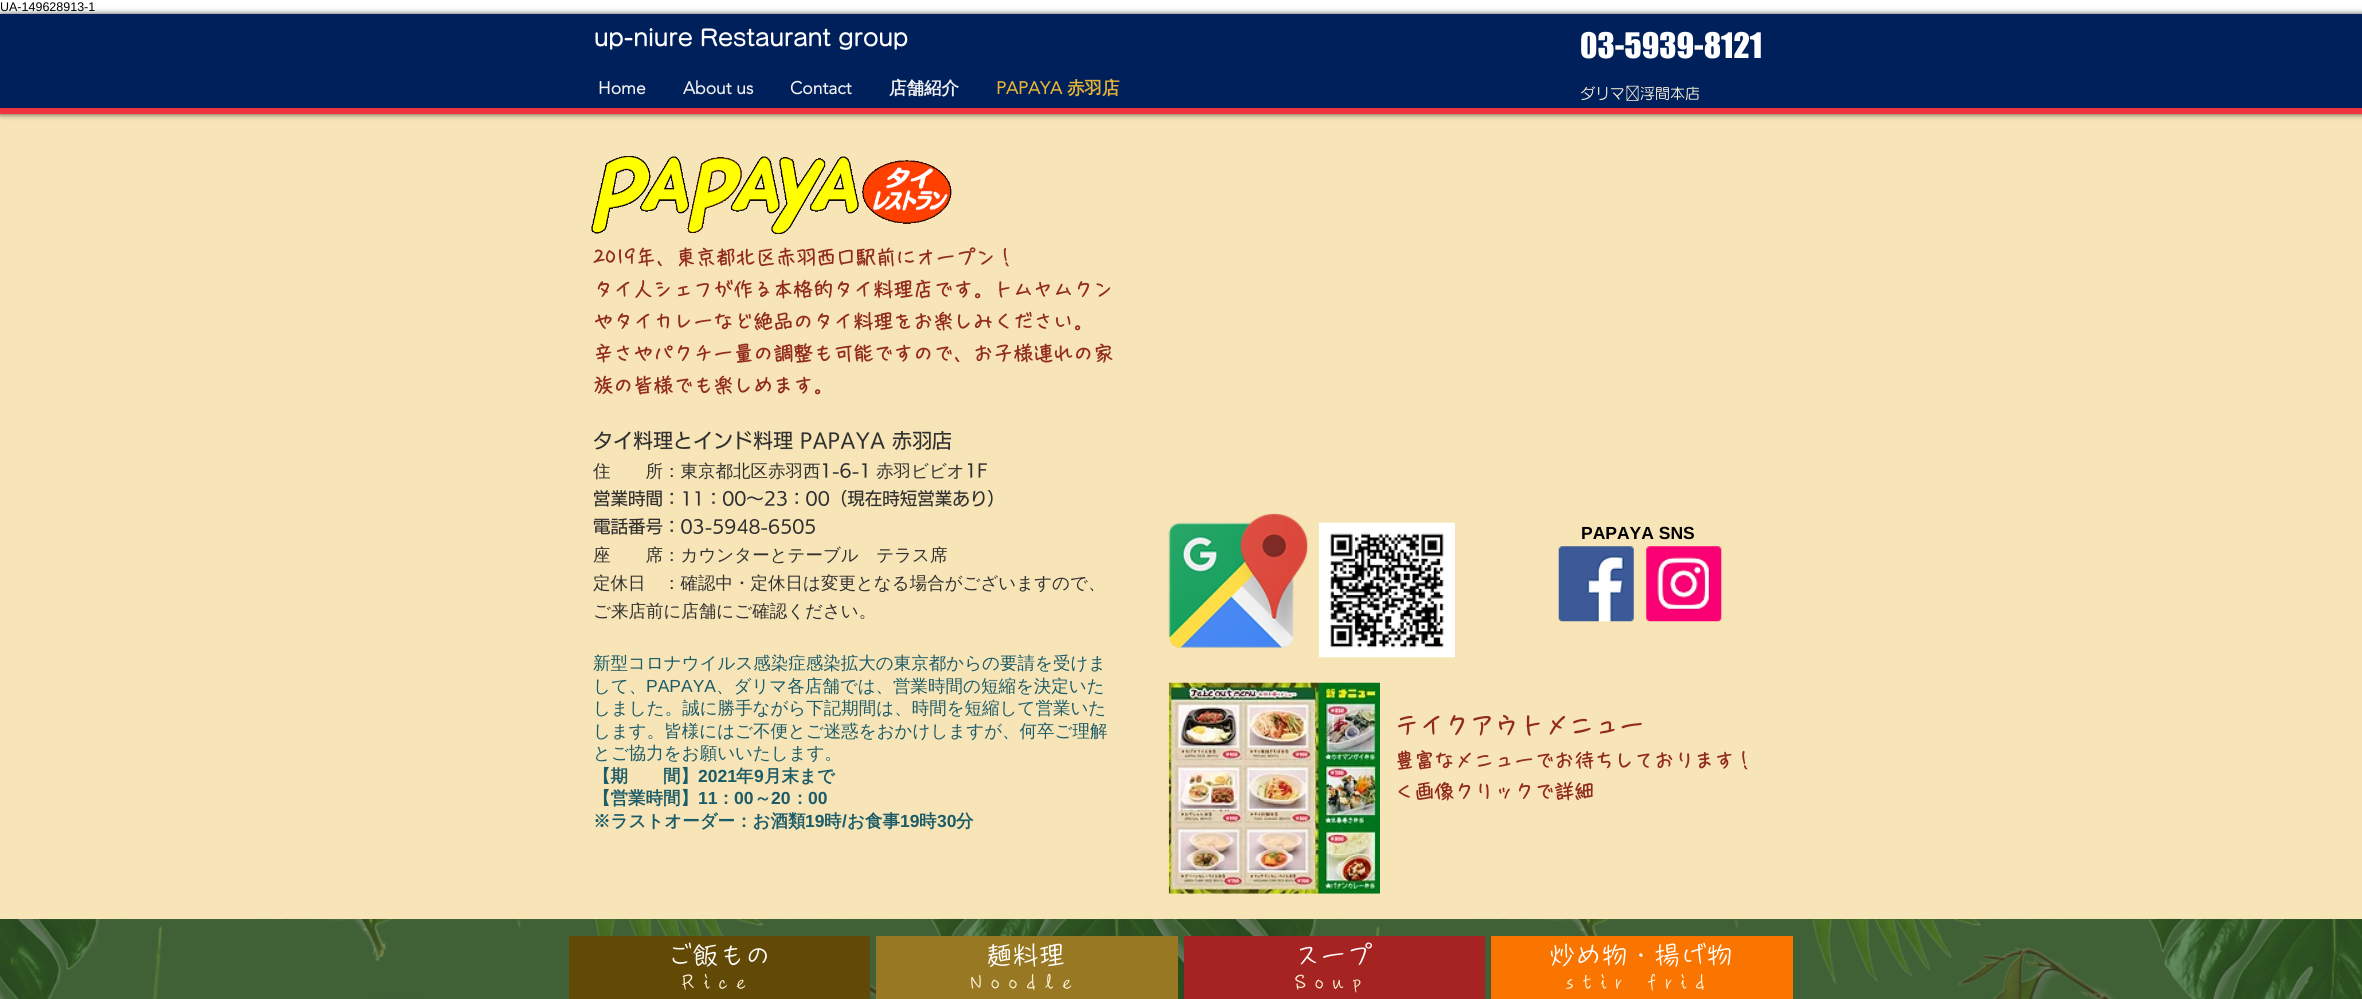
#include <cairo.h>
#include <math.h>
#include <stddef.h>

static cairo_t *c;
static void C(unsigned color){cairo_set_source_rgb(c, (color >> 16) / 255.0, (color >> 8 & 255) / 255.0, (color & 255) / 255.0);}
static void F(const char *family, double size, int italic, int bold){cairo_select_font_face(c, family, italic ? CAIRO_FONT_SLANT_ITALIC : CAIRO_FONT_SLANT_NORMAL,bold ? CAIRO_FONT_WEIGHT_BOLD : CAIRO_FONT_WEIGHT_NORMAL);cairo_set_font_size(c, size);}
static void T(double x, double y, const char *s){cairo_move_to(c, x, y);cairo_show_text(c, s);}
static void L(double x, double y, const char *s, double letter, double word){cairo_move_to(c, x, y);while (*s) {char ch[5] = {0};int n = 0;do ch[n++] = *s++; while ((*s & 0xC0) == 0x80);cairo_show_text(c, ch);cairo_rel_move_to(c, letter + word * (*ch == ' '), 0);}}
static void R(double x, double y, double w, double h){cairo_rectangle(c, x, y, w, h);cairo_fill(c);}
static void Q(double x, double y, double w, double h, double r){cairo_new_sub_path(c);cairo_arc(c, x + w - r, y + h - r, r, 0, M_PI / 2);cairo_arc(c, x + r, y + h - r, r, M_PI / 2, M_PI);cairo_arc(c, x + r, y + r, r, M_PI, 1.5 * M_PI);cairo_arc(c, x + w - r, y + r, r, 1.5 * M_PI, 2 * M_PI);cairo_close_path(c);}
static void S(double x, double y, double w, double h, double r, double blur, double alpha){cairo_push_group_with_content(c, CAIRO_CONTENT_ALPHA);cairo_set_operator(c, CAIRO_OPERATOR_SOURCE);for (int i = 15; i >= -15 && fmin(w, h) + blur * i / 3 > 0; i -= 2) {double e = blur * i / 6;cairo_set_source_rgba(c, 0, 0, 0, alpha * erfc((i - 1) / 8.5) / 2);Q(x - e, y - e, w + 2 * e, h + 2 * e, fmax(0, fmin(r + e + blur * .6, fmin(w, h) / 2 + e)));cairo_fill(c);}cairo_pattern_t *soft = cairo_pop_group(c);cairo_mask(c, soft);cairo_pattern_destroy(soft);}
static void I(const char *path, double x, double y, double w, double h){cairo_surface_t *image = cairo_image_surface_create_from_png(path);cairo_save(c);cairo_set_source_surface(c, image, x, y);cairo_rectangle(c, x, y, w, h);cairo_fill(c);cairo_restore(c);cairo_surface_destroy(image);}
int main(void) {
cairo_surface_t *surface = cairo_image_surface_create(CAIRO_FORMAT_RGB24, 2362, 999);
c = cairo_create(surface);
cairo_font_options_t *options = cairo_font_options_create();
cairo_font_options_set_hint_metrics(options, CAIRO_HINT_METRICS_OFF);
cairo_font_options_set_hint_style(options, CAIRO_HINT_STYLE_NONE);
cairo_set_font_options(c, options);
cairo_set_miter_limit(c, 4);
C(0xffffff);
cairo_paint(c);
F("Liberation Sans",12.5,0,0);
C(0x000000);
T(0,11,"UA-149628913-1");
C(0xf7e5b7);
R(0,114,2362,805);
C(0x000000);
S(0,14,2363,100,0,3,.7);
C(0x00205b);
R(0,14,2362,94);
C(0xef3340);
R(0,108,2362,6);
F("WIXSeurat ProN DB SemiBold",22.5,0,0);
C(0xffffff);
T(594,46,"up-niure Restaurant group");
F("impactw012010",32.5,0,0);
T(1580,58,"03-5939-8121");
F("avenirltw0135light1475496",17.5,0,1);
C(0xf0f0f0);
T(598,94,"Home");
T(683,94,"About us");
T(790,94,"Contact");
F("WenQuanYi Zen Hei",17.5,0,1);
T(889,94,"店舗紹介");
F("avenirltw0135light1475496",17.5,0,1);
C(0xe6b435);
T(996,94,"PAPAYA");
F("WenQuanYi Zen Hei",17.5,0,1);
T(1067,94,"赤羽店");
F("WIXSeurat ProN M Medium",15,0,0);
C(0xfcf3d7);
T(1580,99,"ダリマ 浮間本店");
I("1.png",591,156,361,78);
F("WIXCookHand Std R",20,0,1);
C(0x922b1d);
T(593,265,"2019年、東京都北区赤羽西口駅前にオープン！");
T(593,297,"タイ人シェフが作る本格的タイ料理店です。トムヤムクン");
T(593,329,"やタイカレーなど絶品のタイ料理をお楽しみください。");
T(593,361,"辛さやパクチー量の調整も可能ですので、お子様連れの家");
T(593,393,"族の皆様でも楽しめます。");
F("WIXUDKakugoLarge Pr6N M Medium",20,0,0);
C(0x303030);
T(593,448,"タイ料理とインド料理 PAPAYA 赤羽店");
F("WenQuanYi Zen Hei Medium",17.5,0,0);
T(593,477,"住　　所：東京都北区赤羽西");
F("WIXUDKakugoLarge Pr6N M Medium",17.5,0,0);
T(820,477,"1-6-1");
F("WenQuanYi Zen Hei Medium",17.5,0,0);
T(876,477,"赤羽ビビオ");
F("WIXUDKakugoLarge Pr6N M Medium",17.5,0,0);
T(965,477,"1F");
T(593,505,"営業時間：11：00～23：00（現在時短営業あり）");
T(593,533,"電話番号：03-5948-6505");
F("WenQuanYi Zen Hei Medium",17.5,0,0);
T(593,561,"座　　席：カウンターとテーブル　テラス席");
T(593,589,"定休日　：確認中・定休日は変更となる場合がございますので、");
T(593,617,"ご来店前に店舗にご確認ください。");
C(0x1c5c69);
T(593,669,"新型コロナウイルス感染症感染拡大の東京都からの要請を受けま");
T(593,692,"して、");
F("Liberation Sans",17.5,0,0);
T(646,692,"PAPAYA");
F("WenQuanYi Zen Hei Medium",17.5,0,0);
T(716,692,"、ダリマ各店舗では、営業時間の短縮を決定いた");
T(593,714,"しました。誠に勝手ながら下記期間は、時間を短縮して営業いた");
T(593,737,"します。皆様にはご不便とご迷惑をおかけしますが、何卒ご理解");
T(593,759,"とご協力をお願いいたします。");
F("WenQuanYi Zen Hei",17.5,0,1);
T(593,782,"【期　　間】");
F("Liberation Sans",17.5,0,1);
T(698,782,"2021");
F("WenQuanYi Zen Hei",17.5,0,1);
T(736,782,"年");
F("Liberation Sans",17.5,0,1);
T(754,782,"9");
F("WenQuanYi Zen Hei",17.5,0,1);
T(764,782,"月末まで");
T(593,804,"【営業時間】");
F("Liberation Sans",17.5,0,1);
T(698,804,"11");
F("WenQuanYi Zen Hei",17.5,0,1);
T(717,804,"：");
F("Liberation Sans",17.5,0,1);
T(734,804,"00");
F("WenQuanYi Zen Hei",17.5,0,1);
T(754,804,"～");
F("Liberation Sans",17.5,0,1);
T(771,804,"20");
F("WenQuanYi Zen Hei",17.5,0,1);
T(791,804,"：");
F("Liberation Sans",17.5,0,1);
T(808,804,"00");
F("WenQuanYi Zen Hei",17.5,0,1);
T(593,827,"※ラストオーダー：お酒類");
F("Liberation Sans",17.5,0,1);
T(805,827,"19");
F("WenQuanYi Zen Hei",17.5,0,1);
T(824,827,"時");
F("Liberation Sans",17.5,0,1);
T(842,827,"/");
F("WenQuanYi Zen Hei",17.5,0,1);
T(847,827,"お食事");
F("Liberation Sans",17.5,0,1);
T(900,827,"19");
F("WenQuanYi Zen Hei",17.5,0,1);
T(919,827,"時");
F("Liberation Sans",17.5,0,1);
T(937,827,"30");
F("WenQuanYi Zen Hei",17.5,0,1);
T(956,827,"分");
I("2.png",1168,513,140,135);
I("3.png",1318,522,137,136);
F("Liberation Sans",17.5,0,1);
C(0x000000);
T(1581,539,"PAPAYA SNS");
I("4.png",1558,546,76,76);
I("5.png",1646,546,76,76);
I("6.png",1168,682,212,212);
F("WIXCookHand Std R",25,0,1);
C(0x922b1d);
T(1394,735,"テイクアウトメニュー");
F("WIXCookHand Std R",20,0,1);
T(1394,768,"豊富なメニューでお待ちしております！");
T(1394,799,"＜画像クリックで詳細");
C(0x406136);
R(0,919,2362,80);
I("7.png",0,918,2362,81);
C(0x634906);
R(569,936,301,63);
F("WIXCookHand Std R",26.25,0,0);
C(0xffffff);
T(666,965,"ご飯もの");
F("WIXCookHand Std R",20,0,0);
C(0xfcf3d7);
L(682,990,"Rice",9,0);
C(0x997823);
R(876,936,302,63);
F("WIXCookHand Std R",26.25,0,0);
C(0xffffff);
T(986,965,"麺料理");
F("WIXCookHand Std R",20,0,0);
C(0xfcf3d7);
L(971,990,"Noodle",9,0);
C(0xa52421);
R(1184,936,301,63);
F("WIXCookHand Std R",26.25,0,0);
C(0xffffff);
T(1294,965,"スープ");
F("WIXCookHand Std R",20,0,0);
C(0xfcf3d7);
L(1295,990,"Soup",9,0);
C(0xfa7500);
R(1491,936,302,63);
F("WIXCookHand Std R",26.25,0,0);
C(0xffffff);
T(1549,965,"炒め物・揚げ物");
F("WIXCookHand Std R",20,0,0);
C(0xfcf3d7);
L(1566,990,"stir frid",9,0);
cairo_surface_write_to_png(surface, "o.png");
cairo_font_options_destroy(options);
cairo_destroy(c);
cairo_surface_destroy(surface);
return 0;
}
